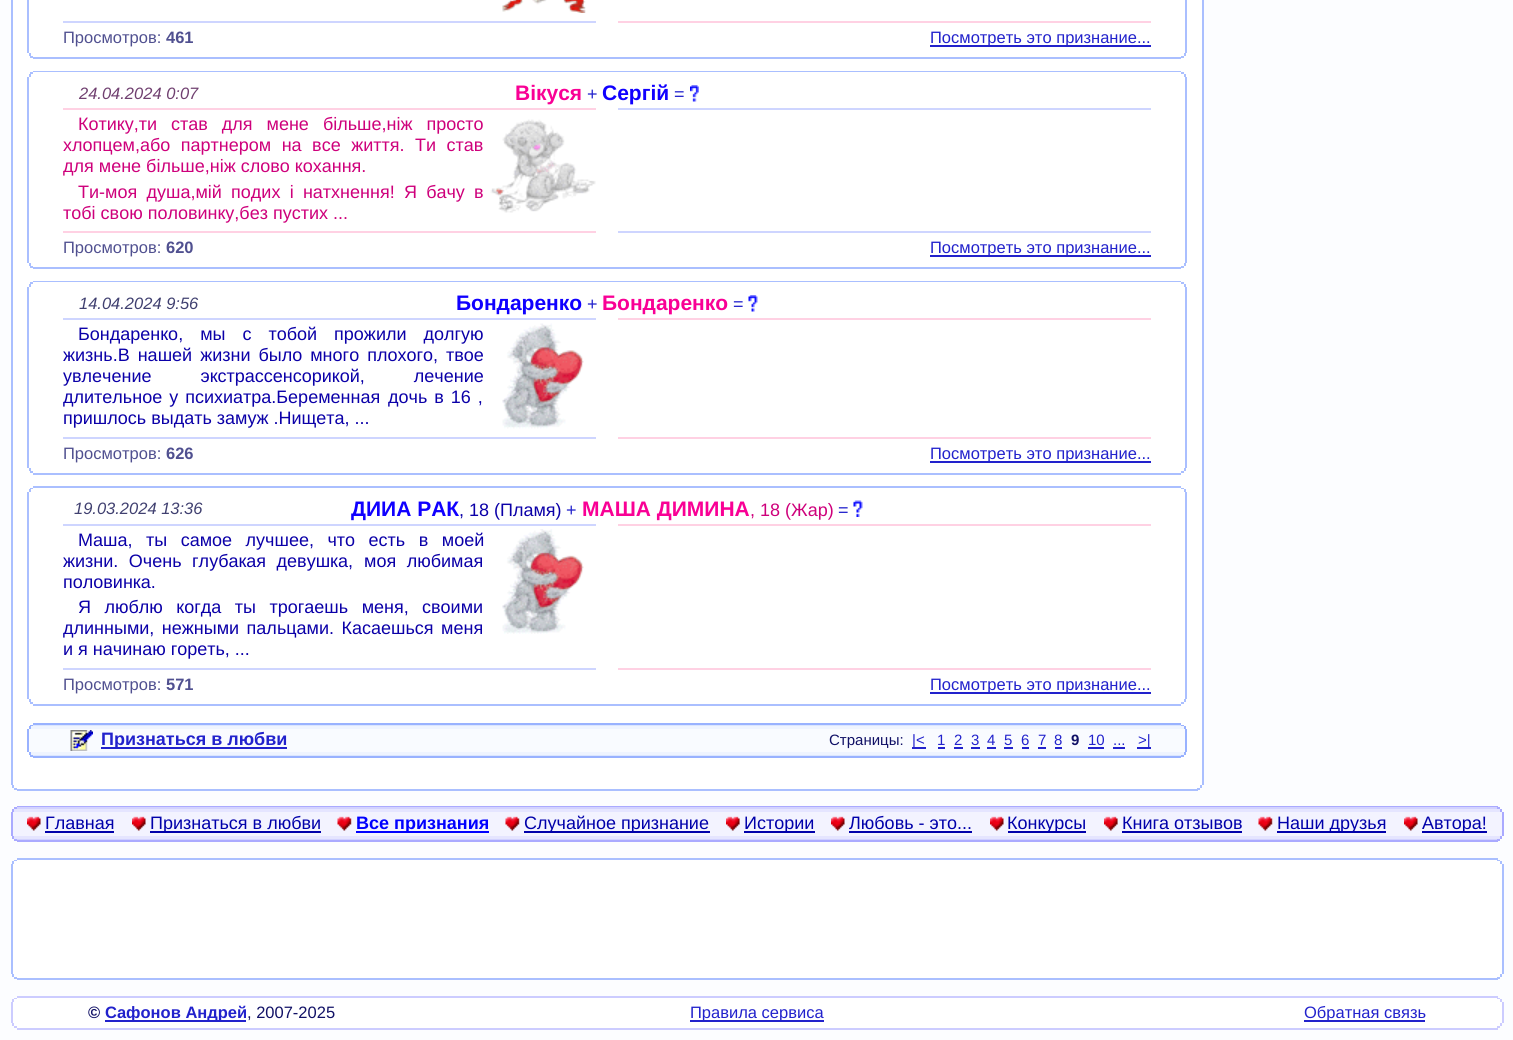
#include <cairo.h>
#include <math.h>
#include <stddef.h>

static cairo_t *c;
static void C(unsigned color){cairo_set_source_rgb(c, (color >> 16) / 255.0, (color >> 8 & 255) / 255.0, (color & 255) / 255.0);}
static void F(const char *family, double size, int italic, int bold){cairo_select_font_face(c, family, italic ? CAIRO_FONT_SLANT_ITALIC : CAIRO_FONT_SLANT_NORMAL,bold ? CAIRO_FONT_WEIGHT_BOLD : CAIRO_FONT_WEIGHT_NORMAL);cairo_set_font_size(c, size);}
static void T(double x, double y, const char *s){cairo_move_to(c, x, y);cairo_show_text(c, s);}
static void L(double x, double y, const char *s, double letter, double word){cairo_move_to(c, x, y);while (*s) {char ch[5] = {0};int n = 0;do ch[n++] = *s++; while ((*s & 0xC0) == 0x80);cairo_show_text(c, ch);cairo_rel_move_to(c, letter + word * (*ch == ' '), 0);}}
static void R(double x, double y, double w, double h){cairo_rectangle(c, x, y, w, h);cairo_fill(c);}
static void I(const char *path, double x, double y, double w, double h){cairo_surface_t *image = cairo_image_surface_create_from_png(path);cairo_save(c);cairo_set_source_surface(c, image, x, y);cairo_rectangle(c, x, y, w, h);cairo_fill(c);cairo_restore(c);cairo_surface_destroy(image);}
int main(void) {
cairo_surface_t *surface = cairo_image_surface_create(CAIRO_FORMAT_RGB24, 1513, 1040);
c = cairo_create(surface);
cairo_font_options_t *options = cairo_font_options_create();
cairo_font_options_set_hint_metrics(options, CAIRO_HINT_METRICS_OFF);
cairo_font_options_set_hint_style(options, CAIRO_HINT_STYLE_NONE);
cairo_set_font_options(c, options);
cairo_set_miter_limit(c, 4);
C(0xfcfdff);
cairo_paint(c);
C(0xffffff);
R(13,0,1189,785);
C(0xaabfff);
R(1202,0,2,785);
R(11,0,2,785);
R(1185,0,2,53);
R(27,0,2,53);
I("1.png",501,0,85,13);
C(0xced5ff);
R(63,21,533,2);
C(0xffd1e3);
R(618,21,533,2);
F("Liberation Sans",16.5,0,0);
C(0x505090);
T(63,43,"Просмотров:");
F("Liberation Sans",16.5,0,1);
T(166,43,"461");
C(0x2222cc);
R(930,45,221,2);
F("Liberation Sans",16.5,0,0);
T(930,43,"Посмотреть это признание...");
C(0xaabfff);
R(1184,53,2,3);
R(29,53,2,3);
R(1181,56,3,2);
R(30,56,3,2);
R(33,57,1148,2);
R(33,71,1148,1);
R(1181,72,3,2);
R(30,72,3,2);
R(1184,74,2,3);
R(29,74,2,3);
R(1185,77,2,186);
R(27,77,2,186);
F("Liberation Sans",16.5,1,0);
C(0x704070);
T(79,99,"24.04.2024 0:07");
F("Liberation Sans",21,0,1);
C(0xf90095);
T(515,100,"Вікуся");
F("Liberation Sans",18,0,0);
C(0x2222cc);
T(587,100,"+");
F("Liberation Sans",21,0,1);
C(0x1000ff);
T(602,100,"Сергій");
F("Liberation Sans",18,0,0);
C(0x2222cc);
T(674,100,"=");
I("2.png",690,85,9,17);
C(0xffd1e3);
R(63,108,533,2);
C(0xced5ff);
R(618,108,533,2);
C(0xce007b);
L(78,130,"Котику,ти став для мене більше,ніж просто",0,9);
L(63,151,"хлопцем,або партнером на все життя. Ти став",0,5.5);
T(63,172,"для мене більше,ніж слово кохання.");
L(78,198,"Ти-моя душа,мій подих і натхнення! Я бачу в",0,4.25);
T(63,219,"тобі свою половинку,без пустих ...");
I("3.png",490,119,106,94);
C(0xffd1e3);
R(63,231,533,2);
C(0xced5ff);
R(618,231,533,2);
F("Liberation Sans",16.5,0,0);
C(0x505090);
T(63,253,"Просмотров:");
F("Liberation Sans",16.5,0,1);
T(166,253,"620");
C(0x2222cc);
R(930,255,221,2);
F("Liberation Sans",16.5,0,0);
T(930,253,"Посмотреть это признание...");
C(0xaabfff);
R(1184,263,2,3);
R(29,263,2,3);
R(1181,266,3,2);
R(30,266,3,2);
R(33,267,1148,2);
R(33,281,1148,1);
R(1181,282,3,2);
R(30,282,3,2);
R(1184,284,2,3);
R(29,284,2,3);
R(1185,287,2,181);
R(27,287,2,181);
F("Liberation Sans",16.5,1,0);
C(0x404070);
T(79,309,"14.04.2024 9:56");
F("Liberation Sans",21,0,1);
C(0x1000ff);
T(456,310,"Бондаренко");
F("Liberation Sans",18,0,0);
C(0x2222cc);
T(587,310,"+");
F("Liberation Sans",21,0,1);
C(0xf90095);
T(602,310,"Бондаренко");
F("Liberation Sans",18,0,0);
C(0x2222cc);
T(733,310,"=");
I("4.png",748,295,10,17);
C(0xced5ff);
R(63,318,533,2);
C(0xffd1e3);
R(618,318,533,2);
C(0x0b00a8);
L(78,340,"Бондаренко, мы с тобой прожили долгую",0,12);
L(63,361,"жизнь.В нашей жизни было много плохого, твое",0,3);
L(63,382,"увлечение экстрассенсорикой, лечение",0,44);
L(63,403,"длительное у психиатра.Беременная",0,2);
L(388,403,"дочь в 16 ,",0,2);
T(63,424,"пришлось выдать замуж .Нищета, ...");
I("5.png",502,323,82,106);
C(0xced5ff);
R(63,437,533,2);
C(0xffd1e3);
R(618,437,533,2);
F("Liberation Sans",16.5,0,0);
C(0x505090);
T(63,459,"Просмотров:");
F("Liberation Sans",16.5,0,1);
T(166,459,"626");
C(0x2222cc);
R(930,461,221,2);
F("Liberation Sans",16.5,0,0);
T(930,459,"Посмотреть это признание...");
C(0xaabfff);
R(1184,468,2,3);
R(29,468,2,3);
R(1181,471,3,2);
R(30,471,3,2);
R(33,473,1148,2);
R(33,486,1148,2);
R(1181,488,3,1);
R(30,488,3,1);
R(1184,489,2,3);
R(29,489,2,3);
R(1185,492,2,207);
R(27,492,2,207);
F("Liberation Sans",16.5,1,0);
C(0x404070);
T(74,514,"19.03.2024 13:36");
F("Liberation Sans",21,0,1);
C(0x1000ff);
T(351,516,"ДИИА РАК");
F("Liberation Sans",18,0,0);
C(0x0b00a8);
T(459,516,", 18 (Пламя)");
C(0x2222cc);
T(566,516,"+");
F("Liberation Sans",21,0,1);
C(0xf90095);
T(582,516,"МАША ДИМИНА");
F("Liberation Sans",18,0,0);
C(0xce007b);
T(750,516,", 18 (Жар)");
C(0x2222cc);
T(838,516,"=");
I("6.png",853,500,10,17);
C(0xced5ff);
R(63,524,533,2);
C(0xffd1e3);
R(618,524,533,2);
C(0x0b00a8);
T(78,546,"Маша,");
L(146,546,"ты самое лучшее, что есть в моей",0,8.5);
L(63,567,"жизни. Очень глубакая девушка,",0,5.5);
L(364,567,"моя любимая",0,5.5);
T(63,588,"половинка.");
L(78,613,"Я люблю когда ты трогаешь меня,",0,8.5);
T(422,613,"своими");
L(63,634,"длинными, нежными пальцами. Касаешься меня",0,2.5);
T(63,655,"и я начинаю гореть, ...");
I("7.png",502,529,82,105);
C(0xced5ff);
R(63,668,533,2);
C(0xffd1e3);
R(618,668,533,2);
F("Liberation Sans",16.5,0,0);
C(0x505090);
T(63,690,"Просмотров:");
F("Liberation Sans",16.5,0,1);
T(166,690,"571");
C(0x2222cc);
R(930,692,221,2);
F("Liberation Sans",16.5,0,0);
T(930,690,"Посмотреть это признание...");
C(0xaabfff);
R(1184,699,2,3);
R(29,699,2,3);
R(1181,702,3,2);
R(30,702,3,2);
R(33,704,1148,2);
C(0x99b2ff);
R(33,723,1148,2);
C(0xdbe6ff);
R(33,725,1148,1);
C(0x99b2ff);
R(1181,725,3,1);
R(30,725,3,1);
C(0xeff4ff);
R(30,726,1154,3);
C(0x99b2ff);
R(1184,726,2,3);
R(29,726,2,3);
C(0xf9fbff);
R(29,729,1156,23);
C(0x99b2ff);
R(1185,729,2,23);
R(27,729,2,23);
I("8.png",70,730,23,21);
C(0x2222cc);
R(101,747,186,2);
F("Liberation Sans",18,0,1);
T(101,745,"Признаться в любви");
F("Liberation Sans",15,0,0);
C(0x111166);
T(829,745,"Страницы:");
C(0x2222cc);
R(912,747,14,2);
T(912,745,"|<");
T(937,745,"1");
R(938,747,7,2);
T(954,745,"2");
R(954,747,9,2);
T(971,745,"3");
R(971,747,9,2);
T(987,745,"4");
R(987,747,9,2);
T(1004,745,"5");
R(1004,747,9,2);
T(1021,745,"6");
R(1022,747,7,2);
T(1038,745,"7");
R(1038,747,8,2);
T(1054,745,"8");
R(1055,747,7,2);
F("Liberation Sans",15,0,1);
C(0x111166);
T(1071,745,"9");
F("Liberation Sans",15,0,0);
C(0x2222cc);
T(1088,745,"10");
R(1088,747,16,2);
T(1113,745,"...");
R(1113,747,12,2);
R(1137,747,14,2);
T(1138,745,">|");
C(0xeff4ff);
R(30,752,1154,3);
C(0x99b2ff);
R(1184,752,2,3);
R(29,752,2,3);
C(0xdbe6ff);
R(33,755,1148,1);
C(0x99b2ff);
R(1181,755,3,2);
R(30,755,3,2);
R(33,756,1148,2);
C(0xffffff);
R(14,785,1186,3);
C(0xaabfff);
R(1200,785,2,3);
R(12,785,2,3);
C(0xffffff);
R(17,788,1180,1);
C(0xaabfff);
R(1197,788,3,2);
R(14,788,3,2);
R(17,789,1181,2);
C(0xaaaaff);
R(17,806,1481,1);
C(0xd2d2ff);
R(17,807,1480,2);
C(0xaaaaff);
R(1497,807,3,2);
R(14,807,3,2);
C(0xe5e5ff);
R(14,809,1486,3);
C(0xaaaaff);
R(1500,809,2,3);
R(12,809,2,3);
C(0xf3f3ff);
R(13,812,1489,24);
C(0xaaaaff);
R(1502,812,2,24);
R(11,812,2,24);
I("9.png",27,816,14,15);
F("Liberation Sans",18,0,0);
C(0x0000aa);
T(45,829,"Главная");
R(45,831,69,2);
I("9.png",132,816,14,15);
R(150,831,171,2);
T(150,829,"Признаться в любви");
I("10.png",337,816,15,15);
C(0x0000ff);
R(356,831,133,2);
F("Liberation Sans",18,0,1);
T(356,829,"Все признания");
I("10.png",505,816,15,15);
C(0x0000aa);
R(524,831,186,2);
F("Liberation Sans",18,0,0);
T(524,829,"Случайное признание");
I("11.png",726,816,14,15);
R(744,831,71,2);
T(744,829,"Истории");
I("9.png",831,816,14,15);
T(849,829,"Любовь - это...");
R(849,831,123,2);
I("9.png",990,816,14,15);
R(1008,831,78,2);
T(1007,829,"Конкурсы");
I("11.png",1104,816,14,15);
T(1122,829,"Книга отзывов");
R(1122,831,120,2);
I("10.png",1258,816,15,15);
R(1277,831,109,2);
T(1277,829,"Наши друзья");
I("9.png",1404,816,14,15);
R(1422,831,65,2);
T(1422,829,"Автора!");
C(0xe5e5ff);
R(14,836,1486,3);
C(0xaaaaff);
R(1500,836,2,3);
R(12,836,2,3);
C(0xd2d2ff);
R(17,839,1480,1);
C(0xaaaaff);
R(1497,839,3,2);
R(14,839,3,2);
R(17,840,1481,2);
C(0xaabfff);
R(17,858,1481,2);
C(0xffffff);
R(17,860,1480,1);
C(0xaabfff);
R(1497,860,3,1);
R(14,860,3,1);
C(0xffffff);
R(14,861,1486,3);
C(0xaabfff);
R(1500,861,2,3);
R(12,861,2,3);
C(0xffffff);
R(13,864,1489,110);
C(0xaabfff);
R(1502,864,2,110);
R(11,864,2,110);
C(0xffffff);
R(14,974,1486,3);
C(0xaabfff);
R(1500,974,2,3);
R(12,974,2,3);
C(0xffffff);
R(17,977,1480,1);
C(0xaabfff);
R(1497,977,3,2);
R(14,977,3,2);
R(17,978,1481,2);
C(0xccccff);
R(17,996,1481,2);
C(0xffffff);
R(17,998,1480,1);
C(0xccccff);
R(1497,998,3,1);
R(14,998,3,1);
C(0xffffff);
R(14,999,1486,3);
C(0xccccff);
R(1500,999,2,3);
R(12,999,2,3);
C(0xffffff);
R(13,1002,1489,21);
C(0xccccff);
R(1502,1002,2,21);
R(11,1002,2,21);
F("Liberation Sans",16.5,0,1);
C(0x111166);
T(88,1018,"©");
C(0x2222cc);
R(105,1020,141,2);
T(105,1018,"Сафонов Андрей");
F("Liberation Sans",16.5,0,0);
C(0x111166);
T(247,1018,", 2007-2025");
C(0x2222cc);
R(690,1020,134,2);
T(690,1018,"Правила сервиса");
R(1304,1020,121,2);
T(1304,1018,"Обратная связь");
C(0xffffff);
R(14,1023,1486,3);
C(0xccccff);
R(1500,1023,2,3);
R(12,1023,2,3);
C(0xffffff);
R(17,1026,1480,2);
C(0xccccff);
R(1497,1026,3,2);
R(14,1026,3,2);
R(17,1028,1481,2);
cairo_surface_write_to_png(surface, "o.png");
cairo_font_options_destroy(options);
cairo_destroy(c);
cairo_surface_destroy(surface);
return 0;
}
